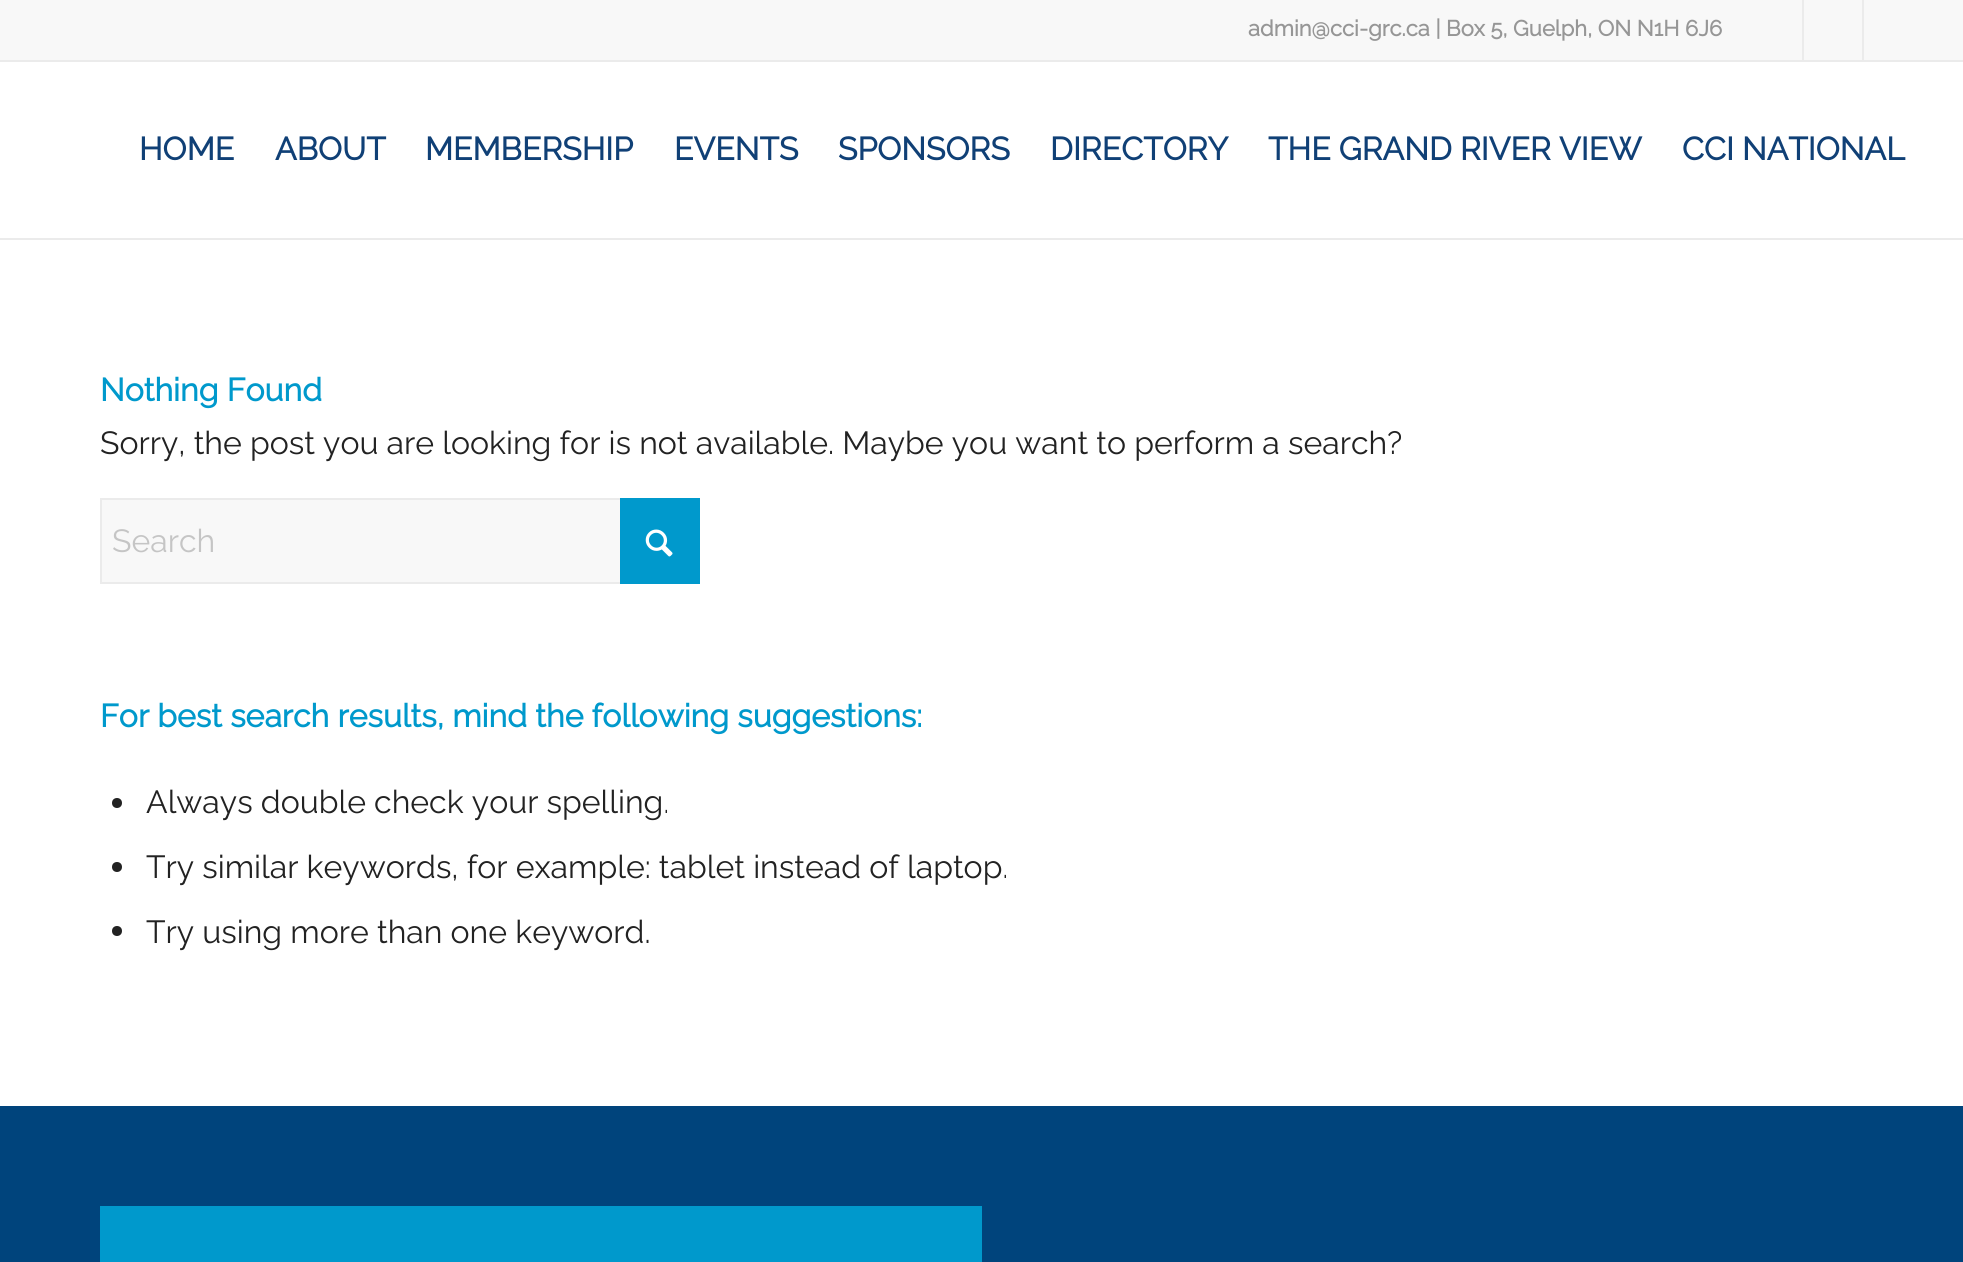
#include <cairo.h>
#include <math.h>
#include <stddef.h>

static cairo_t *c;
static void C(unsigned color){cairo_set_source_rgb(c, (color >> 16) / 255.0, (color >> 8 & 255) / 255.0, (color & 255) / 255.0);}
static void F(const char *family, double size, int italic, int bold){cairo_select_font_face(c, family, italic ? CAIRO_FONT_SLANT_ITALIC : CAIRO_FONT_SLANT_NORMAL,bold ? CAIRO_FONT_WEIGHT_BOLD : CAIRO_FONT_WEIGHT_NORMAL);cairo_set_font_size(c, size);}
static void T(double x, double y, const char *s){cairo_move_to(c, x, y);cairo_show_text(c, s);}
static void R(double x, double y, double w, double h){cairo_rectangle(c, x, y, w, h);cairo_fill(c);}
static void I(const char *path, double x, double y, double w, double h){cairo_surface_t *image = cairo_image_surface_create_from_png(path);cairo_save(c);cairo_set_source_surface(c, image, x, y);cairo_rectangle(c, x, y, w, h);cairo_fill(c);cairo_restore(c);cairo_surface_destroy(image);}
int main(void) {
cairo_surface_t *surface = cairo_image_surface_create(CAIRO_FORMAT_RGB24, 1963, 1262);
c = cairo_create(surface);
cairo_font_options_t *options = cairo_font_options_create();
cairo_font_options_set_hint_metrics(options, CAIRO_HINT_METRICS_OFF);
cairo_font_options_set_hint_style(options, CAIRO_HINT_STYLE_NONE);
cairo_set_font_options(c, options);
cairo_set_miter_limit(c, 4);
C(0xffffff);
cairo_paint(c);
C(0xf8f8f8);
R(0,0,1963,60);
C(0xebebeb);
R(0,60,1963,2);
F("Raleway",22,0,1);
C(0x969696);
T(1248,36,"admin@cci-grc.ca | Box 5, Guelph, ON N1H 6J6");
C(0xebebeb);
R(1802,0,2,60);
R(1862,0,2,60);
R(0,238,1963,2);
F("Raleway",32,0,1);
C(0x104076);
T(139,160,"HOME");
T(275,160,"ABOUT");
T(425,160,"MEMBERSHIP");
T(674,160,"EVENTS");
T(838,160,"SPONSORS");
T(1050,160,"DIRECTORY");
T(1268,160,"THE GRAND RIVER VIEW");
T(1682,160,"CCI NATIONAL");
C(0x0099cc);
T(100,401,"Nothing Found");
F("Raleway Thin",32,0,0);
C(0x222222);
T(100,454,"Sorry, the post you are looking for is not available. Maybe you want to perform a search?");
C(0xf8f8f8);
R(102,500,518,82);
cairo_rectangle(c,101,499,598,84);
C(0xebebeb);
cairo_stroke(c);
C(0xc5c5c5);
T(112,552,"Search");
C(0x0099cc);
R(620,498,80,86);
I("1.png",645,529,28,28);
F("Raleway",32,0,1);
T(100,727,"For best search results, mind the following suggestions:");
C(0x222222);
cairo_new_path(c);
cairo_arc(c,117,803,5,0,2 * M_PI);
cairo_fill(c);
F("Raleway Thin",32,0,0);
T(146,813,"Always double check your spelling.");
cairo_new_path(c);
cairo_arc(c,117,867,5,0,2 * M_PI);
cairo_fill(c);
T(146,878,"Try similar keywords, for example: tablet instead of laptop.");
cairo_new_path(c);
cairo_arc(c,117,931,5,0,2 * M_PI);
cairo_fill(c);
T(146,943,"Try using more than one keyword.");
C(0x00447c);
R(0,1106,1963,156);
C(0x0099cc);
R(100,1206,882,56);
cairo_surface_write_to_png(surface, "o.png");
cairo_font_options_destroy(options);
cairo_destroy(c);
cairo_surface_destroy(surface);
return 0;
}
